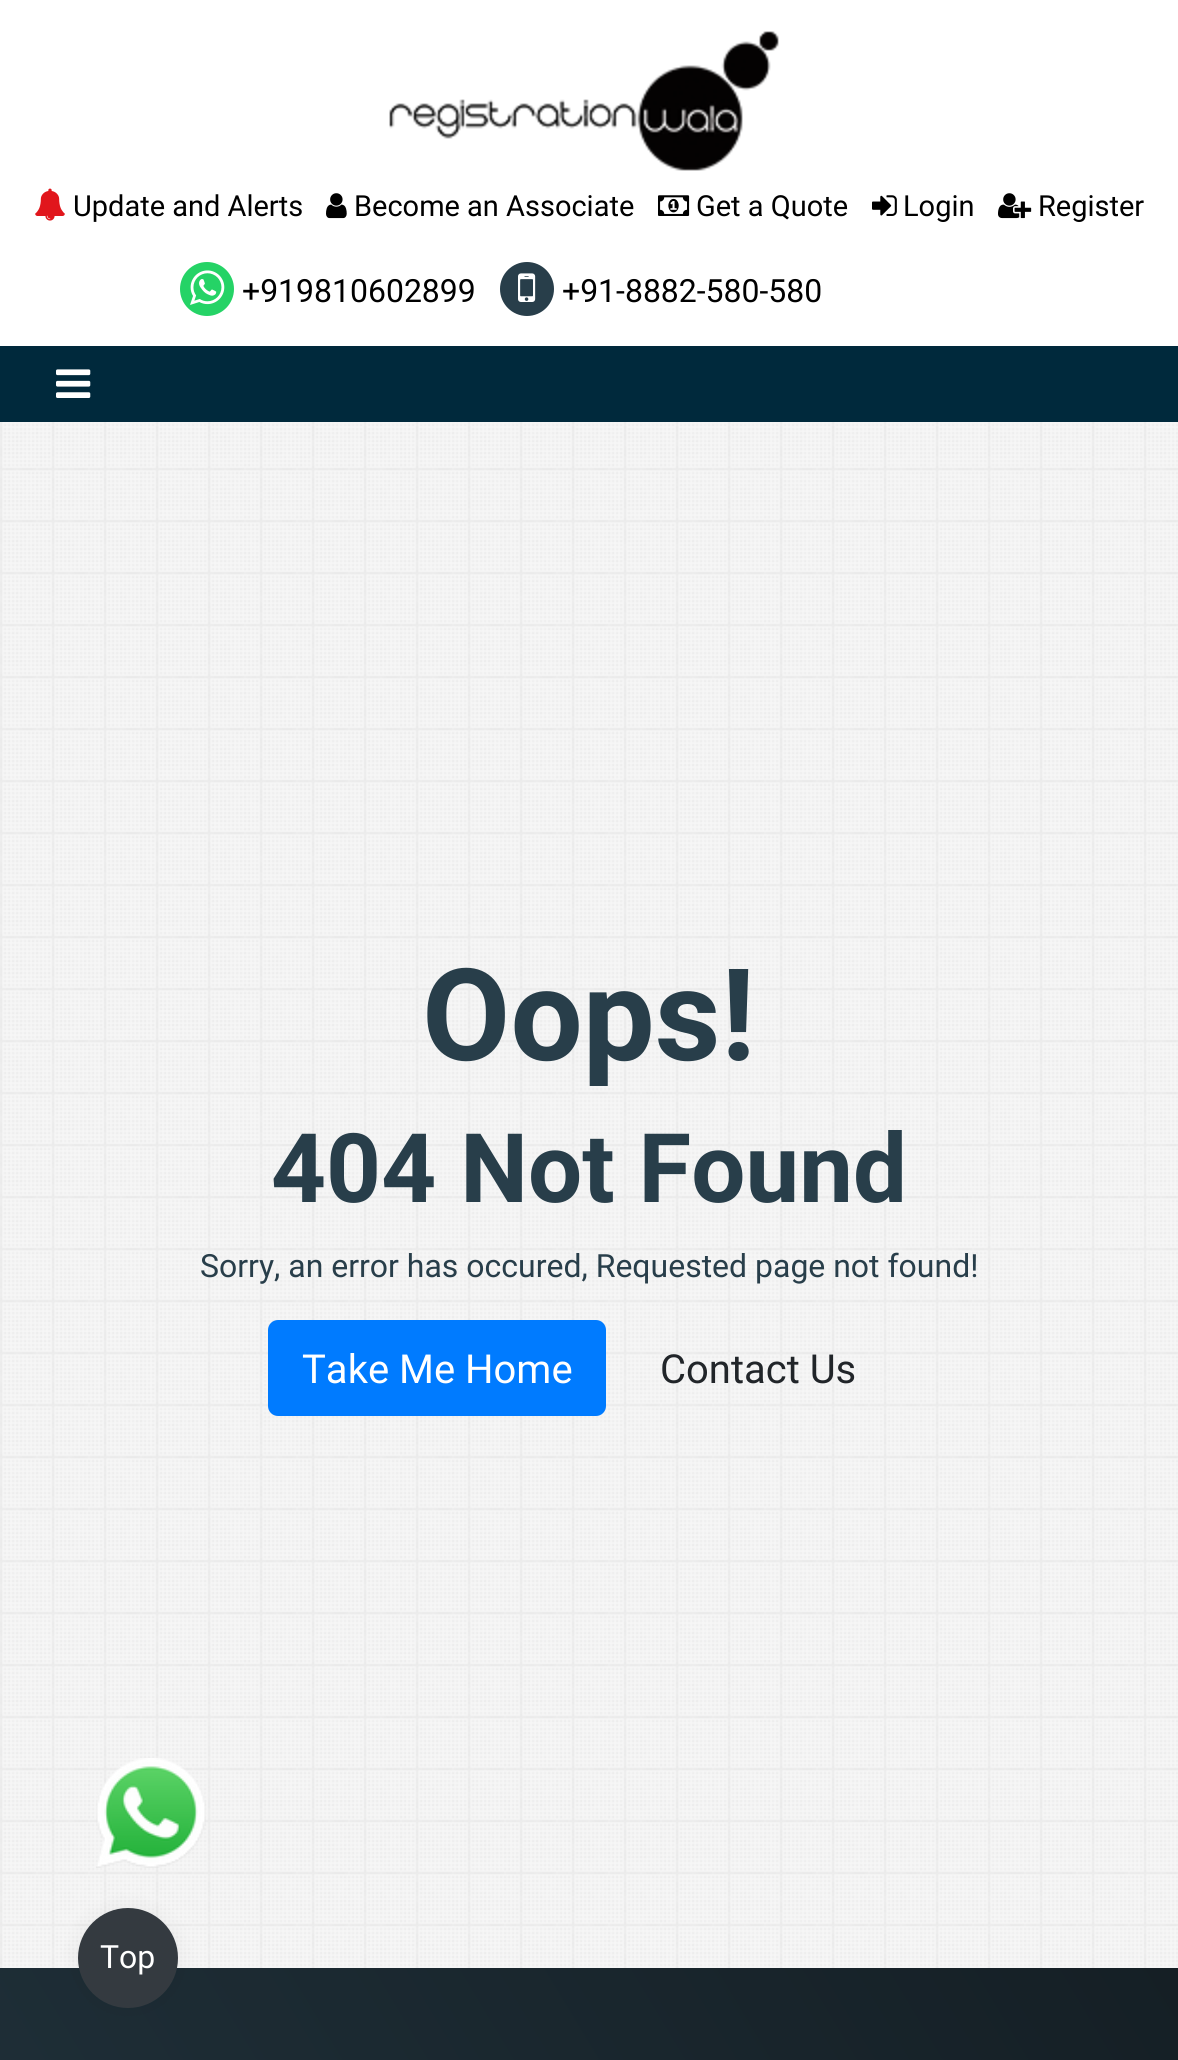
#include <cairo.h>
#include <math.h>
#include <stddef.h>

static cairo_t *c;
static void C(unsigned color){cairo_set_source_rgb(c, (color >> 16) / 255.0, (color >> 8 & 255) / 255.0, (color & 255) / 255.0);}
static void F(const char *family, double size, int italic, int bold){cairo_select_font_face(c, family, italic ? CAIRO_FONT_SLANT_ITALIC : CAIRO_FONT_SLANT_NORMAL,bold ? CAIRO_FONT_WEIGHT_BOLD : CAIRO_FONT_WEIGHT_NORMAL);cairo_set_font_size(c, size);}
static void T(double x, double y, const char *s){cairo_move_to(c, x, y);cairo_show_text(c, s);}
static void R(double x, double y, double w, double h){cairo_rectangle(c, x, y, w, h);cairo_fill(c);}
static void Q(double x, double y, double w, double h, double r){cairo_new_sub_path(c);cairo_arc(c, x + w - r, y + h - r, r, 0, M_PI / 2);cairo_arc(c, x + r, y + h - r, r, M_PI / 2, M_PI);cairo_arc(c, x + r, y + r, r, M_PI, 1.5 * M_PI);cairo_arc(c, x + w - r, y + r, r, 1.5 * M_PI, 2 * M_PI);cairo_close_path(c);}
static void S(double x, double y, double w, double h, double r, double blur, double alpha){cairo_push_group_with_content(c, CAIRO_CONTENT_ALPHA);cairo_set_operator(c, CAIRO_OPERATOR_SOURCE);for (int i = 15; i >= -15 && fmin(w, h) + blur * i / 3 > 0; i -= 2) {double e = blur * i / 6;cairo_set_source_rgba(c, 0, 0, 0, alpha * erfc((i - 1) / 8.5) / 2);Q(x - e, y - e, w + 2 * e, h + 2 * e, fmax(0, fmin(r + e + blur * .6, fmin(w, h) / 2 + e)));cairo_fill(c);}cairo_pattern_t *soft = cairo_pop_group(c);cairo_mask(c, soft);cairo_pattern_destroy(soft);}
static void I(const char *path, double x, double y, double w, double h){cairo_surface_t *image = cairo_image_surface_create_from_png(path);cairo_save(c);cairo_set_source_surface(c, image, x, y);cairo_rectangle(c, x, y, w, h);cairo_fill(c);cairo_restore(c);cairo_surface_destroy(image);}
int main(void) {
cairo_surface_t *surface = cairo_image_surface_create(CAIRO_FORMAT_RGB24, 1178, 2060);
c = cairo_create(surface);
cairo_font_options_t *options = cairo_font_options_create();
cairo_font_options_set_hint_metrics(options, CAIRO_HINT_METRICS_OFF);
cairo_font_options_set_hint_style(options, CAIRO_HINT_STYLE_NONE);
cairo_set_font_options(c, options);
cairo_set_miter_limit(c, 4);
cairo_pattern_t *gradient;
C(0xffffff);
cairo_paint(c);
I("1.png",0,422,1178,1546);
I("2.png",389,31,390,140);
I("3.png",35,188,30,33);
F("Roboto",29,0,0);
C(0x000000);
T(73,216,"Update and Alerts");
I("4.png",326,193,21,26);
T(354,216,"Become an Associate");
I("5.png",658,195,32,21);
T(696,216,"Get a Quote");
I("6.png",872,195,25,21);
T(903,216,"Login");
I("7.png",998,193,34,26);
T(1038,216,"Register");
C(0x25d366);
cairo_new_path(c);
cairo_arc(c,207,289,27,0,2 * M_PI);
cairo_fill(c);
I("8.png",190,270,35,35);
F("Roboto",32,0,0);
C(0x000000);
T(242,302,"+919810602899");
C(0x283e4a);
cairo_new_path(c);
cairo_arc(c,527,289,27,0,2 * M_PI);
cairo_fill(c);
I("9.png",518,273,18,29);
C(0x000000);
T(562,302,"+91-8882-580-580");
C(0x00293c);
R(0,346,1178,76);
I("10.png",56,369,35,29);
F("Roboto",128,0,1);
C(0x283e4a);
T(422,1060,"Oops!");
F("Roboto",96,0,1);
T(271,1202,"404 Not Found");
F("Roboto",32,0,0);
T(200,1277,"Sorry, an error has occured, Requested page not found!");
C(0x007bff);
Q(269,1321,336,94,9);
cairo_fill_preserve(c);
cairo_stroke(c);
F("Roboto",40,0,0);
C(0xffffff);
T(302,1383,"Take Me Home");
C(0x212529);
T(660,1383,"Contact Us");
I("11.png",96,1758,110,110);
gradient = cairo_pattern_create_linear(-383,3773,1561,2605);
cairo_pattern_add_color_stop_rgba(gradient,0,0.157,0.243,0.29,1);
cairo_pattern_add_color_stop_rgba(gradient,1,0.082,0.122,0.145,1);
cairo_set_source(c,gradient);
cairo_pattern_destroy(gradient);
R(0,1968,1178,92);
C(0x000000);
S(78,1908,100,100,50,10,.05);
C(0x343a40);
cairo_arc(c,128,1958,50,0,2 * M_PI);
cairo_fill(c);
F("Roboto",32,0,0);
C(0xffffff);
T(100,1968,"Top");
cairo_surface_write_to_png(surface, "o.png");
cairo_font_options_destroy(options);
cairo_destroy(c);
cairo_surface_destroy(surface);
return 0;
}
